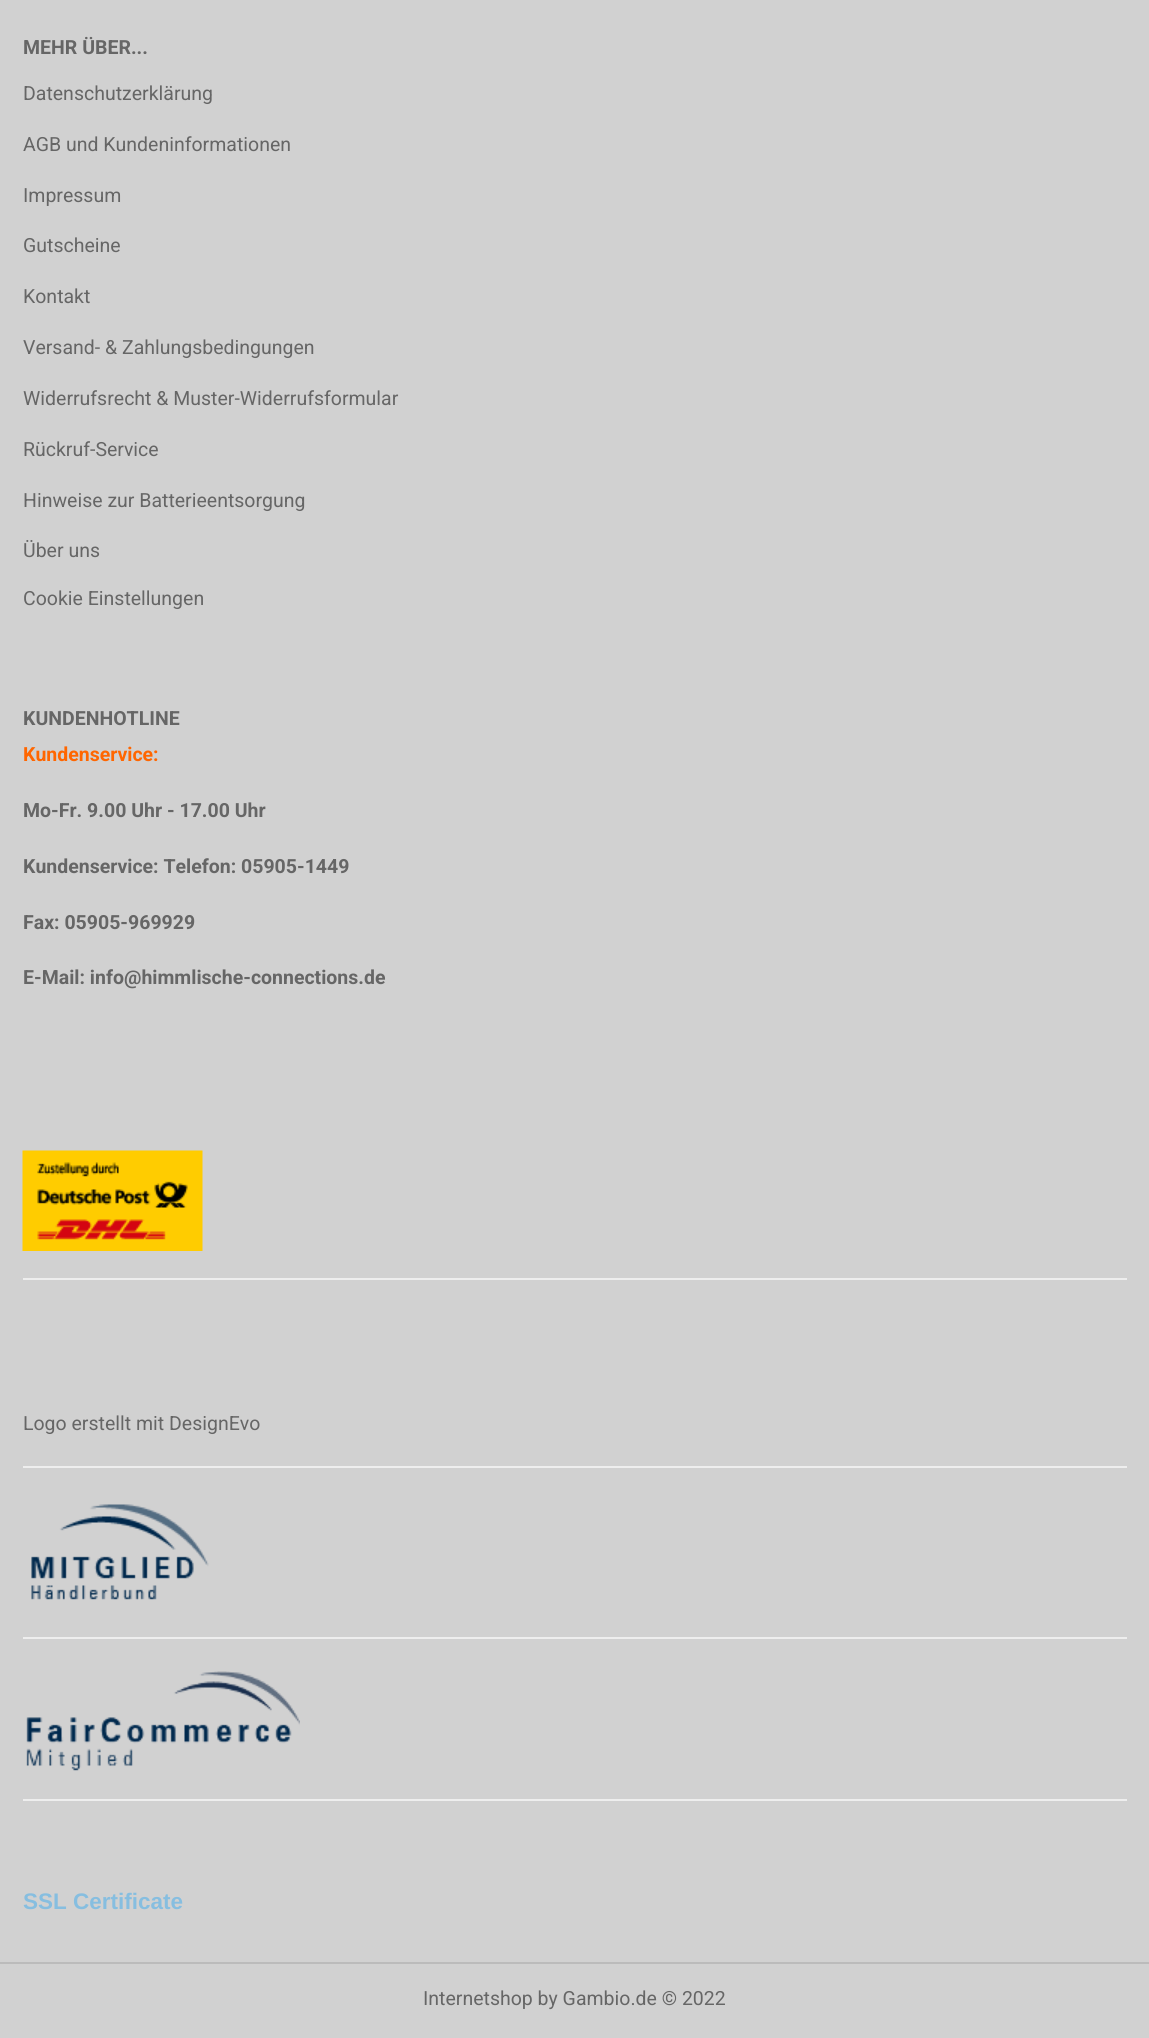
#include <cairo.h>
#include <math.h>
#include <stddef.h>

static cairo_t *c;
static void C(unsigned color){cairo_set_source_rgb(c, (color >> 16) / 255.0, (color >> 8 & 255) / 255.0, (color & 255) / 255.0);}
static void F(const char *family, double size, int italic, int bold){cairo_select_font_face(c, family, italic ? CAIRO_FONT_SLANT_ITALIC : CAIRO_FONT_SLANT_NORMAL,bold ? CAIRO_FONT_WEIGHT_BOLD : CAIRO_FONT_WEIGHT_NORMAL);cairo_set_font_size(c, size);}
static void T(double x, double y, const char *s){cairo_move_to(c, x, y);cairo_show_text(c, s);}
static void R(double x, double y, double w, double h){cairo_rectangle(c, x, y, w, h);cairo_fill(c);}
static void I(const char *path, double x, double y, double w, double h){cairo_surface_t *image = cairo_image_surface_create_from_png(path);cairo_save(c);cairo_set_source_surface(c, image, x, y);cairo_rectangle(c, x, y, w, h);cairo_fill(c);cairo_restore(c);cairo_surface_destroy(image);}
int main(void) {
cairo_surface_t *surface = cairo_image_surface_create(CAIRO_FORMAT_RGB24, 1149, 2038);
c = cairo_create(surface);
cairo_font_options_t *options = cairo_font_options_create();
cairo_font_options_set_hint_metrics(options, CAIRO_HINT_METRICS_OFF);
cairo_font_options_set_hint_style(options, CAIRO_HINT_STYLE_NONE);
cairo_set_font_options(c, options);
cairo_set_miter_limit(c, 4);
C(0xd1d1d1);
cairo_paint(c);
C(0xbbbbbb);
R(0,1962,1149,2);
F("Roboto",19.5,0,1);
C(0x666666);
T(23,54,"MEHR ÜBER...");
F("Roboto",19.5,0,0);
T(23,100,"Datenschutzerklärung");
T(23,151,"AGB und Kundeninformationen");
T(23,202,"Impressum");
T(23,252,"Gutscheine");
T(23,303,"Kontakt");
T(23,354,"Versand- & Zahlungsbedingungen");
T(23,405,"Widerrufsrecht & Muster-Widerrufsformular");
T(23,456,"Rückruf-Service");
T(23,507,"Hinweise zur Batterieentsorgung");
T(23,557,"Über uns");
T(23,605,"Cookie Einstellungen");
F("Roboto",19.5,0,1);
T(23,725,"KUNDENHOTLINE");
C(0xff6600);
T(23,761,"Kundenservice:");
C(0x666666);
T(23,817,"Mo-Fr. 9.00 Uhr - 17.00 Uhr");
T(23,873,"Kundenservice: Telefon: 05905-1449");
T(23,929,"Fax: 05905-969929");
T(23,984,"E-Mail: info@himmlische-connections.de");
I("1.png",22,1150,181,101);
C(0xeeeeee);
R(23,1278,1104,2);
F("Roboto",19.5,0,0);
C(0x666666);
T(23,1430,"Logo erstellt mit DesignEvo");
C(0xeeeeee);
R(23,1466,1104,2);
I("2.png",31,1504,178,96);
R(23,1637,1104,2);
I("3.png",26,1671,274,100);
R(23,1799,1104,2);
F("Liberation Sans",22.5,0,1);
C(0x86bee0);
T(23,1909,"SSL Certificate");
F("Roboto",19.5,0,0);
C(0x666666);
T(423,2005,"Internetshop by Gambio.de © 2022");
cairo_surface_write_to_png(surface, "o.png");
cairo_font_options_destroy(options);
cairo_destroy(c);
cairo_surface_destroy(surface);
return 0;
}
